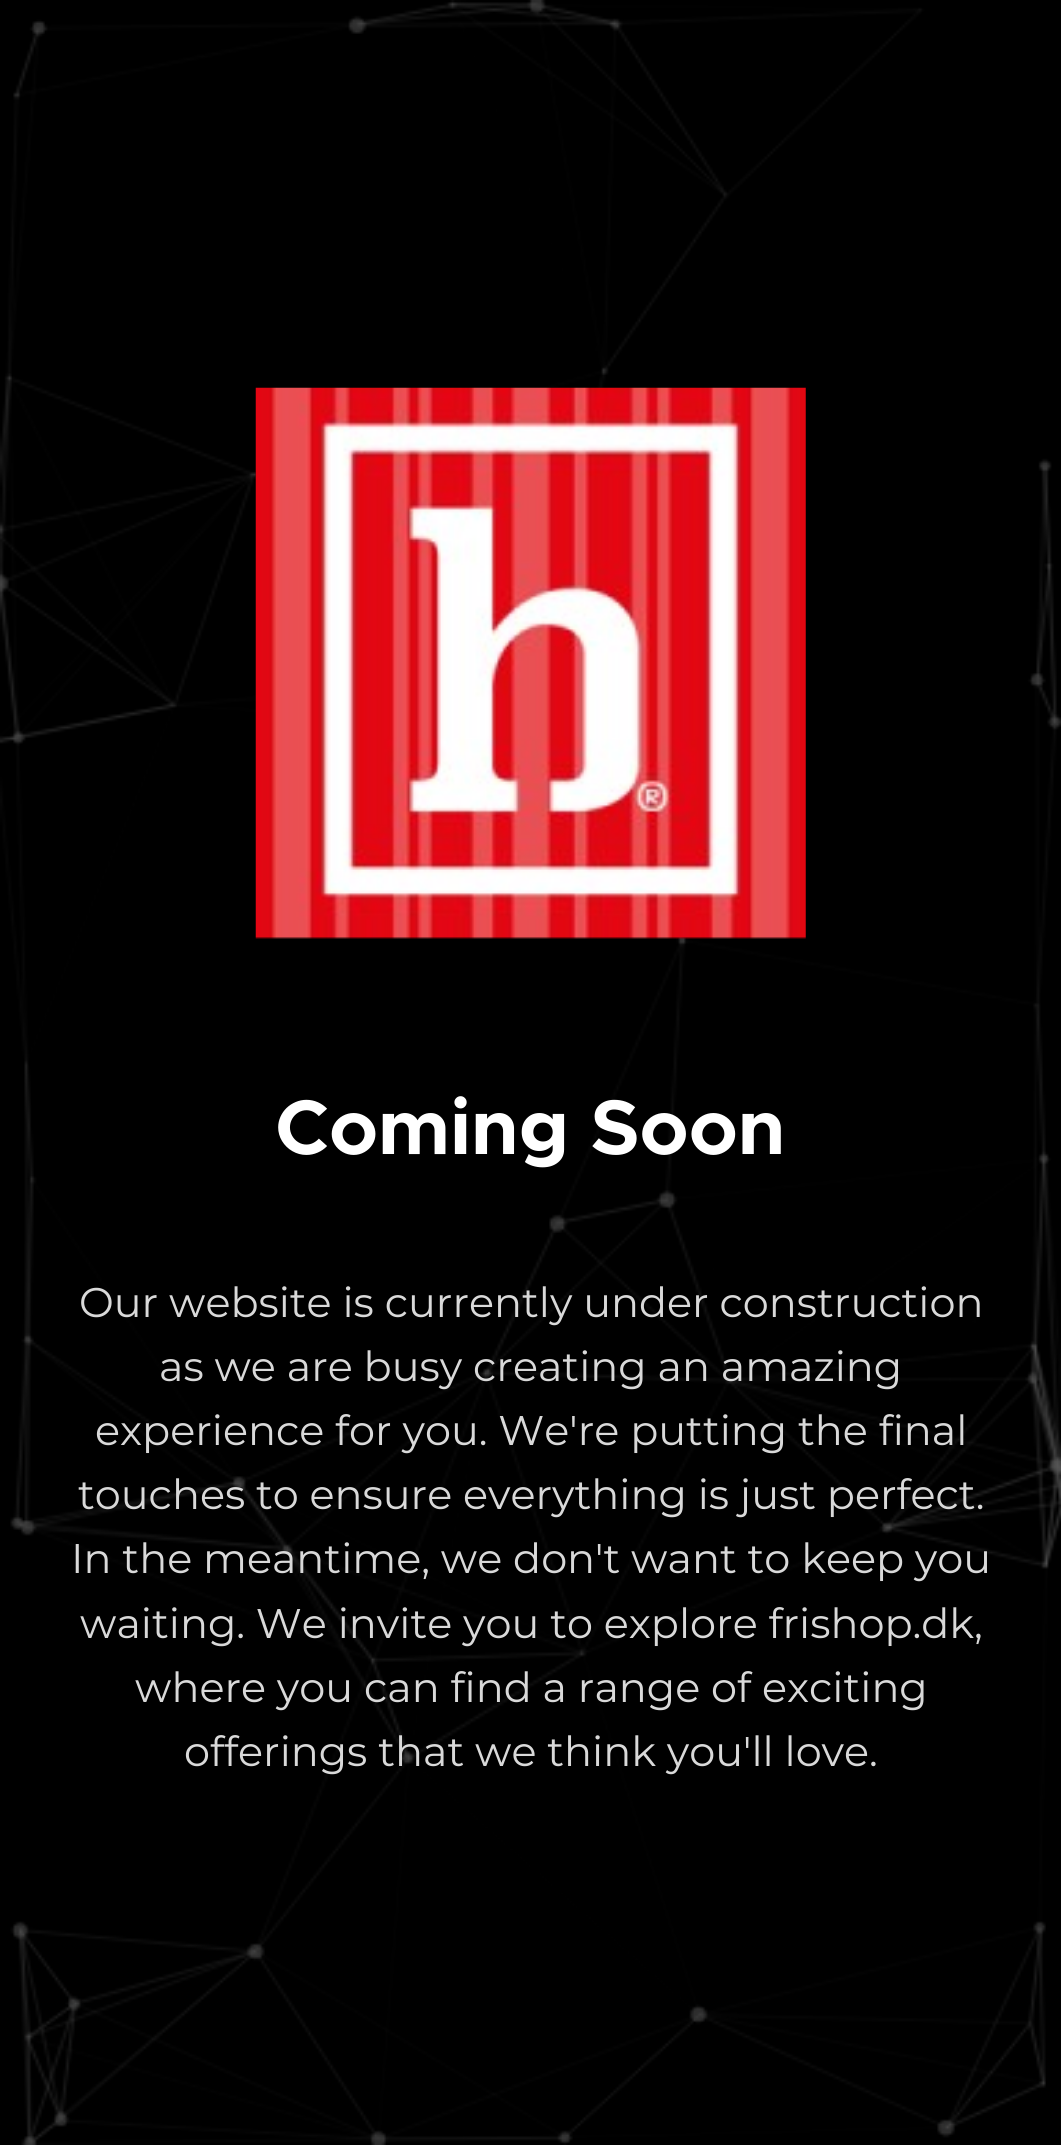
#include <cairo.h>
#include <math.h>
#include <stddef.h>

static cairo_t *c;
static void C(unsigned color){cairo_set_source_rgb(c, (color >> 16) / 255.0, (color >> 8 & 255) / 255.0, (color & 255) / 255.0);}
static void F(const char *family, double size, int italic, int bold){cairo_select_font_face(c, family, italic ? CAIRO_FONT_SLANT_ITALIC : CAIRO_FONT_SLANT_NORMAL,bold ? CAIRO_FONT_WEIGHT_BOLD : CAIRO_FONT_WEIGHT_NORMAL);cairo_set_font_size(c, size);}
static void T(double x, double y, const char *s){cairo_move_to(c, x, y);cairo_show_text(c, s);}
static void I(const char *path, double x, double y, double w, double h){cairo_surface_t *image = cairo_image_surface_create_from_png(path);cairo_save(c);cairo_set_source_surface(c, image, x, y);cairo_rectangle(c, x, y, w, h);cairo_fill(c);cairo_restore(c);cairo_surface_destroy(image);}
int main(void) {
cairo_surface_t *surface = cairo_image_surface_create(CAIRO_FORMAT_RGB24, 1061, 2145);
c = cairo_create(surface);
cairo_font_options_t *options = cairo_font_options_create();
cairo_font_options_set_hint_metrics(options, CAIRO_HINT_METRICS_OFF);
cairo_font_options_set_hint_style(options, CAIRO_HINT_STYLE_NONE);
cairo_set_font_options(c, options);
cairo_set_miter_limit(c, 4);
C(0x000000);
cairo_paint(c);
I("1.png",0,0,1061,2145);
I("2.png",255,387,551,552);
F("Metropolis",77.5,0,1);
C(0xffffff);
T(275,1154,"Coming Soon");
F("Montserrat",41.4,0,0);
C(0xd9d9d9);
T(79,1317,"Our website is currently under construction");
T(159,1381,"as we are busy creating an amazing");
T(95,1445,"experience for you. We're putting the final");
T(78,1509,"touches to ensure everything is just perfect.");
T(71,1573,"In the meantime, we don't want to keep you");
T(80,1638,"waiting. We invite you to explore frishop.dk,");
T(135,1702,"where you can find a range of exciting");
T(184,1766,"offerings that we think you'll love.");
cairo_surface_write_to_png(surface, "o.png");
cairo_font_options_destroy(options);
cairo_destroy(c);
cairo_surface_destroy(surface);
return 0;
}
